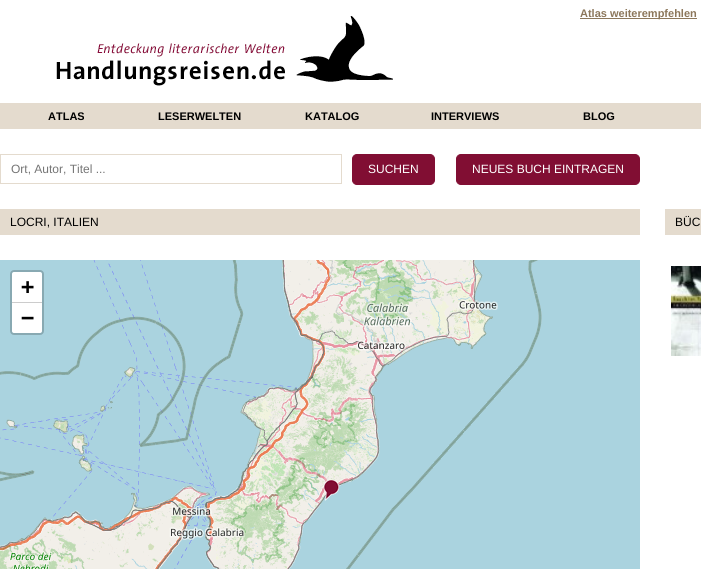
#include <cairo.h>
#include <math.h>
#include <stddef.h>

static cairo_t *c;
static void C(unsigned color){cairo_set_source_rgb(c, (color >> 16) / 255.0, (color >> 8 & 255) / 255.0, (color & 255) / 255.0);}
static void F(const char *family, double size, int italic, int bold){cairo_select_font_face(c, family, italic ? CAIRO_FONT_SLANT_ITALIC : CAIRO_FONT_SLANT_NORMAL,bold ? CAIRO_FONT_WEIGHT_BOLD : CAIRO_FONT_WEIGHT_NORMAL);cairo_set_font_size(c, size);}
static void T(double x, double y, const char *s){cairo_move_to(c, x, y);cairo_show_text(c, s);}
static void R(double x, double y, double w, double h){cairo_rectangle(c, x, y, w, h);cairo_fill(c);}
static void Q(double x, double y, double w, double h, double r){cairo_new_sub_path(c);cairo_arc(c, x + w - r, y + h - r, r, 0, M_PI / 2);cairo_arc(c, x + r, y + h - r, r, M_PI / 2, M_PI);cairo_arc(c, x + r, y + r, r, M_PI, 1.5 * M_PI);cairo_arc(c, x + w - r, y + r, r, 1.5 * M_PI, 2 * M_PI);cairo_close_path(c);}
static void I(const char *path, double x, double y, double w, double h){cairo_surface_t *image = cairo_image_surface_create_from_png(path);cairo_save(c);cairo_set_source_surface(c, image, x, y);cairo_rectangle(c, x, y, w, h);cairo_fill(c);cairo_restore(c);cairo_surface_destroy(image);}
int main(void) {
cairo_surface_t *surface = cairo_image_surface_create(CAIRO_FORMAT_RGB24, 701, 569);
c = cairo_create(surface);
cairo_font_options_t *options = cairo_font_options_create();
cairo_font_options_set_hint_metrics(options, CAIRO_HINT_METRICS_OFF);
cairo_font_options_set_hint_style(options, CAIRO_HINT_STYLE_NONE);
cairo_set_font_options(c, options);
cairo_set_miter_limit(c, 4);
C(0xffffff);
cairo_paint(c);
C(0x8c775b);
R(580,18,117,1);
F("Liberation Sans",11,0,1);
T(580,17,"Atlas weiterempfehlen");
I("1.png",56,16,337,70);
C(0xe4dbce);
R(0,103,701,26);
C(0x000000);
T(48,120,"ATLAS");
T(158,120,"LESERWELTEN");
T(305,120,"KATALOG");
T(431,120,"INTERVIEWS");
T(583,120,"BLOG");
cairo_rectangle(c,.5,154.5,341,29);
C(0xe4dbce);
cairo_set_line_width(c,1);
cairo_stroke(c);
F("Liberation Sans",12,0,0);
C(0x757575);
T(11,173,"Ort, Autor, Titel ...");
C(0x810e33);
Q(352.5,154.5,82,30,4.5);
cairo_fill_preserve(c);
cairo_stroke(c);
C(0xffffff);
T(368,173,"SUCHEN");
C(0x810e33);
Q(456.5,154.5,183,30,4.5);
cairo_fill_preserve(c);
cairo_stroke(c);
C(0xffffff);
T(472,173,"NEUES BUCH EINTRAGEN");
C(0xe4dbce);
R(0,209,640,26);
C(0x000000);
T(10,226,"LOCRI, ITALIEN");
I("2.png",0,260,176,105);
I("3.png",176,260,256,105);
I("4.png",432,260,208,105);
I("5.png",0,365,176,204);
I("6.png",176,365,256,204);
I("7.png",432,365,208,204);
I("8.png",323,479,17,22);
Q(11,271,32,63,3);
C(0x88a9b2);
cairo_set_line_width(c,2);
cairo_stroke(c);
C(0xffffff);
cairo_new_path(c);
cairo_move_to(c,14,272);
cairo_line_to(c,40,272);
cairo_curve_to(c,41,272,42,273,42,274);
cairo_line_to(c,42,303);
cairo_line_to(c,12,303);
cairo_line_to(c,12,274);
cairo_curve_to(c,12,273,13,272,14,272);
cairo_close_path(c);
cairo_fill(c);
C(0xcccccc);
R(12,302,30,1);
F("DejaVu Sans Mono",22,0,1);
C(0x000000);
T(21,294,"+");
C(0xffffff);
cairo_new_path(c);
cairo_move_to(c,12,303);
cairo_line_to(c,42,303);
cairo_line_to(c,42,331);
cairo_curve_to(c,42,332,41,333,40,333);
cairo_line_to(c,14,333);
cairo_curve_to(c,13,333,12,332,12,331);
cairo_close_path(c);
cairo_fill(c);
C(0x000000);
T(21,325,"−");
C(0xe4dbce);
R(665,209,36,26);
F("Liberation Sans",12,0,0);
C(0x000000);
T(675,226,"BÜC");
I("9.png",671,266,30,90);
cairo_surface_write_to_png(surface, "o.png");
cairo_font_options_destroy(options);
cairo_destroy(c);
cairo_surface_destroy(surface);
return 0;
}
